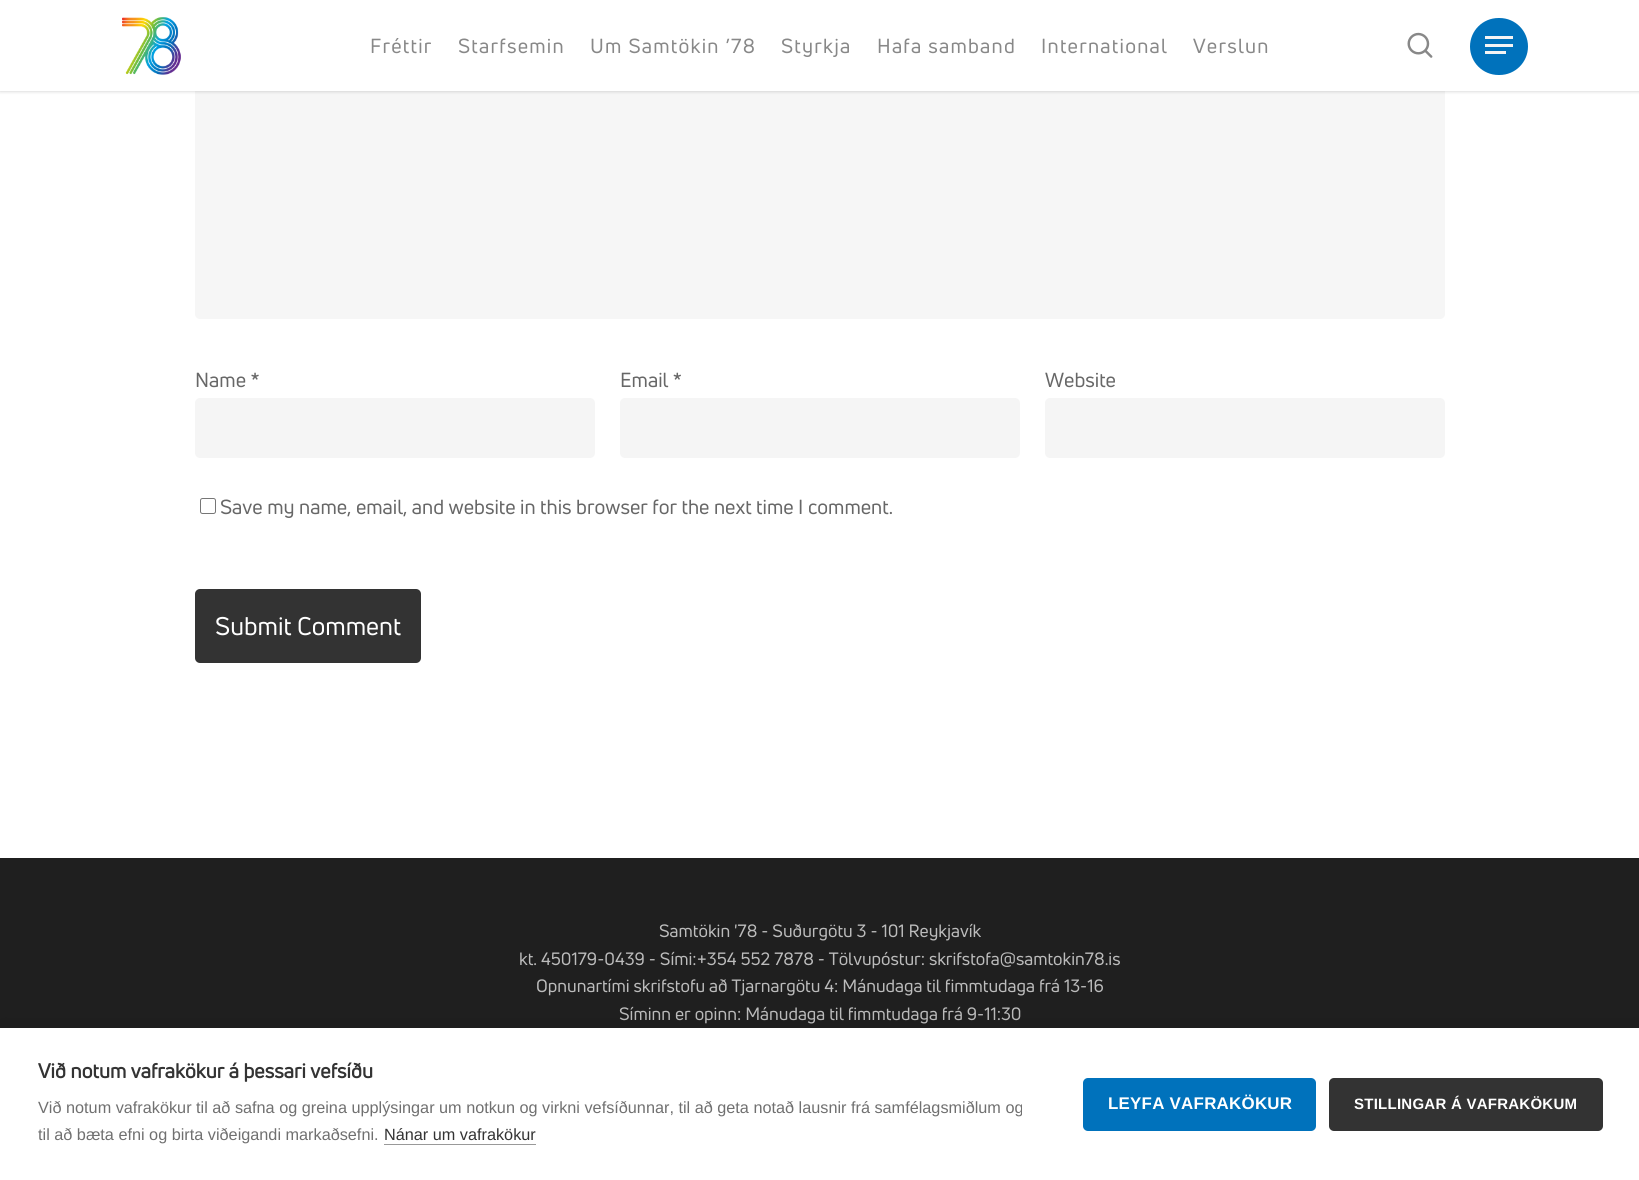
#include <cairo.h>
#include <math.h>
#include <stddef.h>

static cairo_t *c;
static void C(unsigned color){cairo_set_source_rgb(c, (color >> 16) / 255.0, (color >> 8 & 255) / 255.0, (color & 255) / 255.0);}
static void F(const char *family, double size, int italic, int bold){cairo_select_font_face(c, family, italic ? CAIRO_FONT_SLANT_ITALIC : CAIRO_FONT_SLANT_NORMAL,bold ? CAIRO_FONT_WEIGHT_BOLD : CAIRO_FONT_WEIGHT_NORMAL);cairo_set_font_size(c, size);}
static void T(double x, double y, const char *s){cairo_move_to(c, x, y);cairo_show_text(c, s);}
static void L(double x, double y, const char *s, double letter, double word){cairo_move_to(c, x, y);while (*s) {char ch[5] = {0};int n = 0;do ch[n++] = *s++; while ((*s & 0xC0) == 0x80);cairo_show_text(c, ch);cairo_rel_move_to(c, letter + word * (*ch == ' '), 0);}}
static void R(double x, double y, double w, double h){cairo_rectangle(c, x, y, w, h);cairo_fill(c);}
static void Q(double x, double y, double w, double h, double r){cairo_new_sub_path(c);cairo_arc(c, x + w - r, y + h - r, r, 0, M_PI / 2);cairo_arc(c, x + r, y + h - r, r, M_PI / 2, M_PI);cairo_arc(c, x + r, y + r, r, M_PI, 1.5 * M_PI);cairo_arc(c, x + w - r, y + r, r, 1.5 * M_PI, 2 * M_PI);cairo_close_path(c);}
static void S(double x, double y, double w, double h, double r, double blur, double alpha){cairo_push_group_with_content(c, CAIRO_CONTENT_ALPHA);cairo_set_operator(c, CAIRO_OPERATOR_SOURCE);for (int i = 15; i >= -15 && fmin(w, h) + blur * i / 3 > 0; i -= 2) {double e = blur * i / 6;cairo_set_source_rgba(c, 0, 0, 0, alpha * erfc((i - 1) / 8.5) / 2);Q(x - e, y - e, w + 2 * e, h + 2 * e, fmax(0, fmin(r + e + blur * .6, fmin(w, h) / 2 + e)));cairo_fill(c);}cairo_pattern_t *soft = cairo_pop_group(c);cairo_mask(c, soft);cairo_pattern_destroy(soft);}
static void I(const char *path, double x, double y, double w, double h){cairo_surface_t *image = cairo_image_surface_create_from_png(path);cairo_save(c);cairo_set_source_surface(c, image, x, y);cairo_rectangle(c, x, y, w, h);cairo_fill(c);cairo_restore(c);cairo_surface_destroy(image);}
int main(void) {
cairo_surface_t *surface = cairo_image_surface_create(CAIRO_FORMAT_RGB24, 1639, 1180);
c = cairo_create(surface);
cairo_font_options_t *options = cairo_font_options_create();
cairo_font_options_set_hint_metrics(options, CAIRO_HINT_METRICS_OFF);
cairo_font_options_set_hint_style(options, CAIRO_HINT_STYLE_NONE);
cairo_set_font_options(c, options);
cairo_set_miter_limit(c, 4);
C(0xffffff);
cairo_paint(c);
C(0xf6f6f6);
Q(195,49,1250,270,5);
cairo_fill(c);
C(0x000000);
S(0,0,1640,91,0,2,.22);
C(0xffffff);
R(0,0,1639,91);
I("1.png",122,17,59,58);
F("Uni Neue",20,0,0);
C(0x888888);
L(370,53,"Fréttir",1.25,0);
L(458,53,"Starfsemin",1.25,0);
L(590,53,"Um Samtökin ’78",1.25,0);
L(781,53,"Styrkja",1.25,0);
L(877,53,"Hafa samband",1.25,0);
L(1041,53,"International",1.25,0);
L(1193,53,"Verslun",1.25,0);
I("2.png",1407,32,26,26);
C(0x0072bc);
Q(1470,18,58,57,28.5);
cairo_fill(c);
C(0xf4f4f4);
R(1485,36,28,3);
R(1485,51,21,3);
R(1485,44,28,3);
C(0x676767);
T(195,387,"Name *");
C(0xf5f5f5);
Q(195,398,400,60,5);
cairo_fill(c);
C(0x676767);
T(620,387,"Email *");
C(0xf5f5f5);
Q(620,398,400,60,5);
cairo_fill(c);
C(0x676767);
T(1045,387,"Website");
C(0xf5f5f5);
Q(1045,398,400,60,5);
cairo_fill(c);
Q(200.5,498.5,15,15,2);
C(0x767676);
cairo_set_line_width(c,1);
cairo_stroke(c);
C(0x676767);
T(220,514,"Save my name, email, and website in this browser for the next time I comment.");
C(0x333333);
Q(195,589,226,74,5);
cairo_fill(c);
F("Uni Neue",25,0,0);
C(0xffffff);
T(215,635,"Submit Comment");
C(0x1f1f1f);
R(0,858,1639,170);
F("Uni Neue",17.5,0,0);
C(0xbcbcbc);
T(659,937,"Samtökin '78 - Suðurgötu 3 - 101 Reykjavík");
T(519,965,"kt. 450179-0439 - Sími:+354 552 7878 - Tölvupóstur: skrifstofa@samtokin78.is");
T(536,992,"Opnunartími skrifstofu að Tjarnargötu 4: Mánudaga til fimmtudaga frá 13-16");
T(619,1020,"Síminn er opinn: Mánudaga til fimmtudaga frá 9-11:30");
C(0x000000);
S(0,1028,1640,152,0,12.5,.1);
C(0xffffff);
R(0,1028,1639,152);
F("Uni Neue",20,0,1);
C(0x333333);
T(38,1078,"Við notum vafrakökur á þessari vefsíðu");
F("Liberation Sans",16.25,0,0);
C(0x707070);
T(38,1113,"Við notum vafrakökur til að safna og greina upplýsingar um notkun og virkni vefsíðunnar, til að geta notað lausnir frá samfélagsmiðlum og");
T(38,1140,"til að bæta efni og birta viðeigandi markaðsefni.");
C(0x333333);
T(384,1140,"Nánar um vafrakökur");
C(0x999999);
R(384,1144,152,1);
C(0x0072bc);
Q(1083,1078,233,53,5);
cairo_fill(c);
F("Liberation Sans",16.9,0,1);
C(0xffffff);
L(1108,1109,"LEYFA VAFRAKÖKUR",.25,0);
C(0x333333);
Q(1329,1078,274,53,5);
cairo_fill(c);
F("Liberation Sans",15,0,1);
C(0xffffff);
L(1354,1109,"STILLINGAR Á VAFRAKÖKUM",.25,0);
cairo_surface_write_to_png(surface, "o.png");
cairo_font_options_destroy(options);
cairo_destroy(c);
cairo_surface_destroy(surface);
return 0;
}
